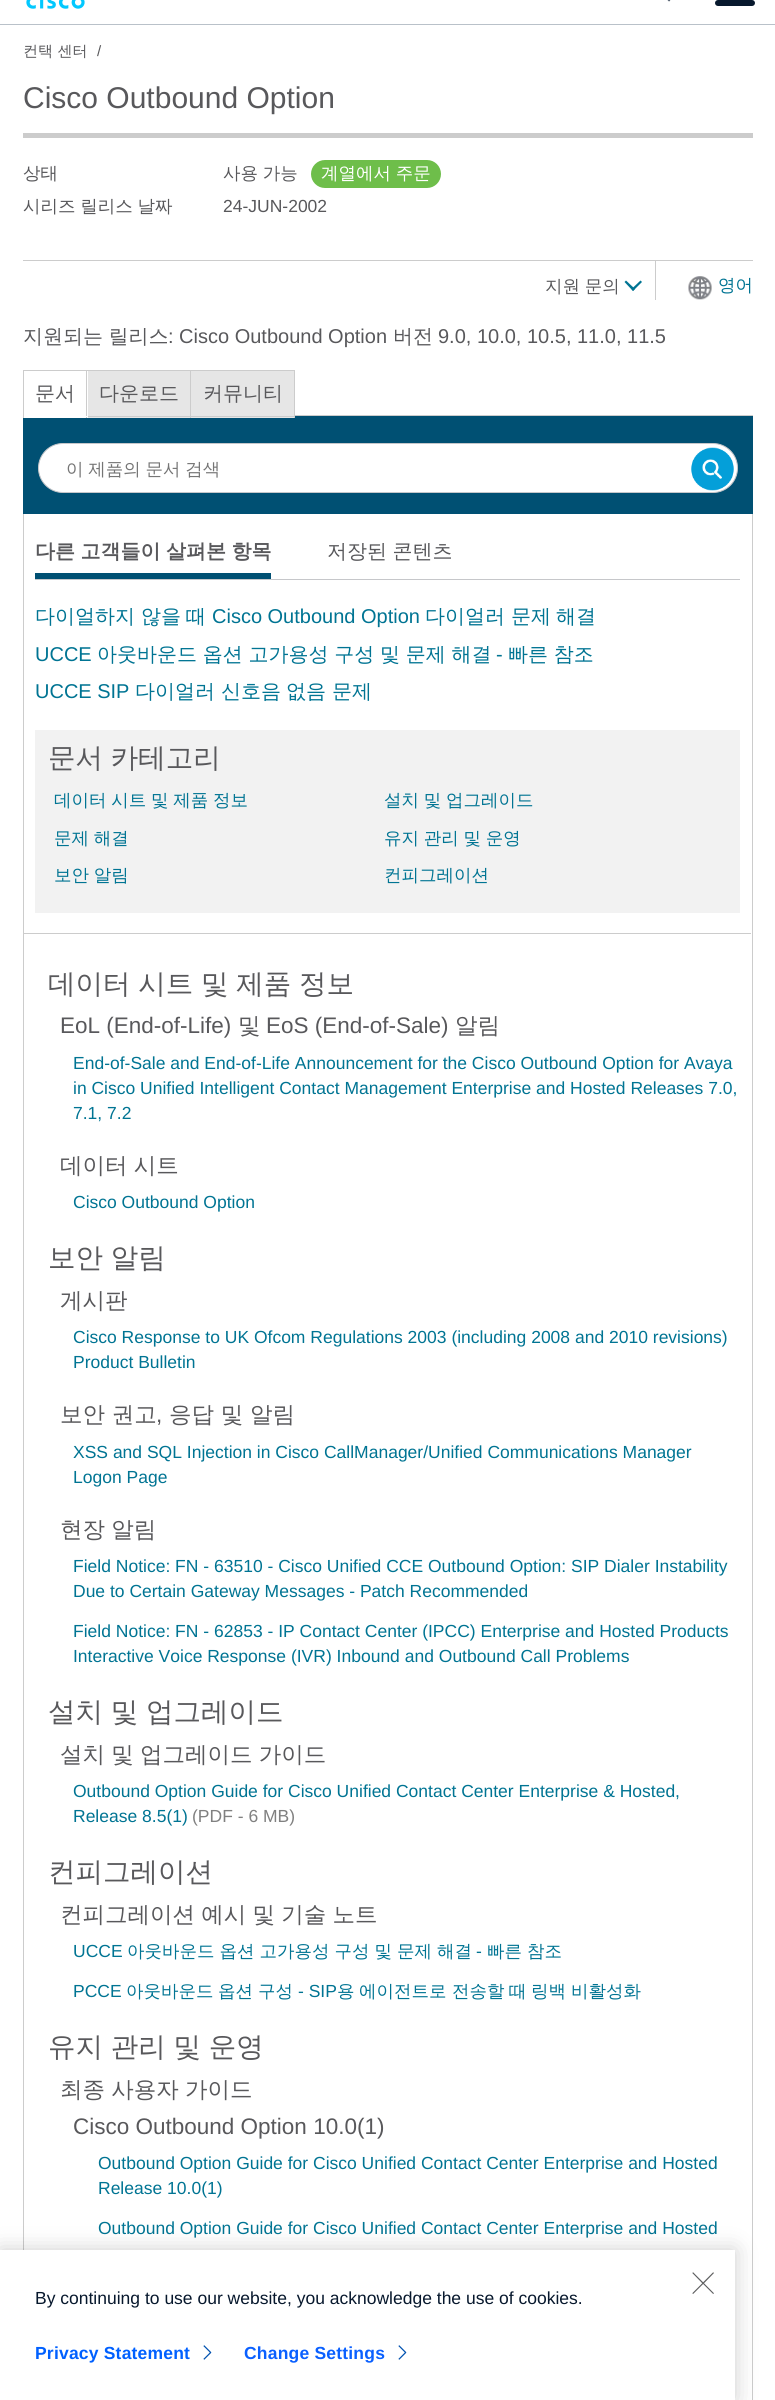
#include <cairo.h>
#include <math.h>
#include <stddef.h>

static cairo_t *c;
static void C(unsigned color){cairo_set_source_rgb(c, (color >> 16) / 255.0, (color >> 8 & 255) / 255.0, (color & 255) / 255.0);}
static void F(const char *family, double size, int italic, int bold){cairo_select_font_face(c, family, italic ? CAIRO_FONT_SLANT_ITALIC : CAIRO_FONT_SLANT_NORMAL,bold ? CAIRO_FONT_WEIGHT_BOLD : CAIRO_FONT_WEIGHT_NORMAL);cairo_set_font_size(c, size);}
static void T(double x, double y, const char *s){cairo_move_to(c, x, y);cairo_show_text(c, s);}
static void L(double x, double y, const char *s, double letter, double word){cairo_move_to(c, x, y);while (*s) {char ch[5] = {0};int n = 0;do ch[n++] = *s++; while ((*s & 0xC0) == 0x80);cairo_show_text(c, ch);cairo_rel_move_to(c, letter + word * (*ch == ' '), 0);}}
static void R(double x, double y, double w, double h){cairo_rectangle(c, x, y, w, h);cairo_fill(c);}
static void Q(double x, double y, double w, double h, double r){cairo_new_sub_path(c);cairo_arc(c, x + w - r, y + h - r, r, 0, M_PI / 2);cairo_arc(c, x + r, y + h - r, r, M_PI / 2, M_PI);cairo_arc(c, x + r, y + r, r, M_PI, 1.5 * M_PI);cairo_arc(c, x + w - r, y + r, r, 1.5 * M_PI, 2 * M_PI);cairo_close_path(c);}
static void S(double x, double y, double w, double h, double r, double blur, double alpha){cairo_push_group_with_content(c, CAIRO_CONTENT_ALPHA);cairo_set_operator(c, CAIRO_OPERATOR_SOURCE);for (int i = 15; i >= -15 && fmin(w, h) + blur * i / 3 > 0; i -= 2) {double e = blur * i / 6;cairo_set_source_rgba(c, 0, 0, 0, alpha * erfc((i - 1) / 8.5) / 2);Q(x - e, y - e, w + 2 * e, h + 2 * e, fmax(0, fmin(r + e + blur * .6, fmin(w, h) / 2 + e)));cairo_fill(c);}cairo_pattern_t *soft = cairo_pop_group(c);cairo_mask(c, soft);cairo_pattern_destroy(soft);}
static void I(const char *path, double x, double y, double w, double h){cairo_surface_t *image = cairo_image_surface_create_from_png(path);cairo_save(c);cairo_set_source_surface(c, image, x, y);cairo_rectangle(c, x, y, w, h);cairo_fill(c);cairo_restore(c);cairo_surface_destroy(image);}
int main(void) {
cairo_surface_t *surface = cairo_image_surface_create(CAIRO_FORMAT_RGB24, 775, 2400);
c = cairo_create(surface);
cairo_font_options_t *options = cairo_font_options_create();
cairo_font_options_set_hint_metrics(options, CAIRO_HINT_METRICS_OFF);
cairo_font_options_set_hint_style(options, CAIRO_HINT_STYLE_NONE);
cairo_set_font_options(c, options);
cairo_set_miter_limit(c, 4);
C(0xffffff);
cairo_paint(c);
C(0xb9c1c9);
R(0,24,775,1);
I("1.png",26,0,59,9);
I("2.png",667,0,4,2);
C(0x07182d);
Q(715,0,40,6,3);
cairo_fill(c);
F("WenQuanYi Zen Hei Medium",15,0,0);
C(0x58585b);
T(23,56,"컨택 센터");
F("Liberation Sans",15,0,0);
T(97,56,"/");
F("Liberation Sans",30,0,0);
T(23,108,"Cisco Outbound Option");
C(0xcccccc);
R(23,133,730,5);
F("WenQuanYi Zen Hei Medium",17.5,0,0);
C(0x58585b);
T(23,179,"상태");
L(223,179,"사용 가능",0,-.5);
C(0x6ebe4a);
Q(311,160,130,28,14);
cairo_fill(c);
C(0xffffff);
L(321,179,"계열에서 주문",0,-.5);
C(0x58585b);
L(23,212,"시리즈 릴리스 날짜",0,-.5);
F("Liberation Sans",17.5,0,0);
T(223,212,"24-JUN-2002");
C(0xcccccc);
R(23,260,730,1);
F("WenQuanYi Zen Hei Medium",17.5,0,0);
C(0x58585b);
L(545,292,"지원 문의",0,-.5);
C(0x007493);
cairo_new_path(c);
cairo_move_to(c,640.5,280.5);
cairo_line_to(c,642,282);
cairo_line_to(c,633,291);
cairo_line_to(c,631.5,289);
cairo_close_path(c);
cairo_fill(c);
cairo_new_path(c);
cairo_move_to(c,626,280.5);
cairo_line_to(c,635,289);
cairo_line_to(c,633,291);
cairo_line_to(c,624.5,282);
cairo_close_path(c);
cairo_fill(c);
C(0xcccccc);
R(655,260,1,40);
I("3.png",688,276,24,24);
C(0x007493);
T(718,291,"영어");
F("WenQuanYi Zen Hei Medium",20,0,0);
C(0x58585b);
L(23,343,"지원되는 릴리스",0,-.5);
F("Liberation Sans",20,0,0);
T(168,343,": Cisco Outbound Option");
F("WenQuanYi Zen Hei Medium",20,0,0);
T(393,343,"버전");
F("Liberation Sans",20,0,0);
T(438,343,"9.0, 10.0, 10.5, 11.0, 11.5");
cairo_rectangle(c,23.5,415.5,729,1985);
C(0xcccccc);
cairo_set_line_width(c,1);
cairo_stroke(c);
C(0x005073);
R(23,416,730,98);
C(0xffffff);
R(24,415,64,3);
C(0xcccccc);
R(23,370,272,1);
R(86,370,1,48);
C(0xffffff);
R(23,416,65,1);
C(0xcccccc);
R(23,370,1,48);
F("WenQuanYi Zen Hei Medium",20,0,0);
C(0x58585b);
T(35,400,"문서");
C(0xe6e6e6);
R(88,371,102,47);
C(0xcccccc);
R(190,370,1,48);
R(88,416,103,1);
C(0x58585b);
T(99,400,"다운로드");
C(0xe6e6e6);
R(191,371,103,47);
C(0xcccccc);
R(294,370,1,48);
R(191,416,104,1);
C(0x58585b);
T(203,400,"커뮤니티");
C(0xffffff);
Q(38.5,443.5,699,49,24.5);
cairo_fill_preserve(c);
C(0xc6c7ca);
cairo_stroke(c);
F("WenQuanYi Zen Hei Medium",17.5,0,0);
C(0x757575);
L(66,475,"이 제품의 문서 검색",0,-.5);
I("4.png",691,447,43,44);
C(0xc6c7ca);
R(35,579,705,1);
C(0x005073);
R(35,573,236,6);
F("WenQuanYi Zen Hei",20,0,1);
C(0x58585b);
L(35,558,"다른 고객들이 살펴본 항목",0,-.5);
F("WenQuanYi Zen Hei Medium",20,0,0);
L(327,558,"저장된 콘텐츠",0,-.5);
C(0x007493);
T(35,623,"다이얼하지");
T(141,623,"않을");
T(186,623,"때");
F("Liberation Sans",20,0,0);
T(212,623,"Cisco Outbound Option");
F("WenQuanYi Zen Hei Medium",20,0,0);
T(425,623,"다이얼러");
T(511,623,"문제");
T(556,623,"해결");
F("Liberation Sans",20,0,0);
T(35,661,"UCCE");
F("WenQuanYi Zen Hei Medium",20,0,0);
L(97,661,"아웃바운드 옵션 고가용성 구성 및 문제 해결",0,-.25);
F("Liberation Sans",20,0,0);
T(496,661,"-");
F("WenQuanYi Zen Hei Medium",20,0,0);
L(508,661,"빠른 참조",0,-.25);
F("Liberation Sans",20,0,0);
T(35,698,"UCCE SIP");
F("WenQuanYi Zen Hei Medium",20,0,0);
T(135,698,"다이얼러");
T(221,698,"신호음");
T(286,698,"없음");
T(332,698,"문제");
C(0xf2f2f2);
R(35,730,705,183);
F("WenQuanYi Zen Hei Medium",27.5,0,0);
C(0x58585b);
L(48,767,"문서 카테고리",0,-.5);
F("WenQuanYi Zen Hei Medium",17.5,0,0);
C(0x007493);
L(54,806,"데이터 시트 및 제품 정보",0,-.5);
L(54,844,"문제 해결",0,-.5);
L(54,881,"보안 알림",0,-.5);
L(384,806,"설치 및 업그레이드",0,-.5);
L(384,844,"유지 관리 및 운영",0,-.5);
T(384,881,"컨피그레이션");
C(0xcccccc);
R(24,933,727,1);
F("WenQuanYi Zen Hei Medium",27.5,0,0);
C(0x58585b);
L(48,993,"데이터 시트 및 제품 정보",0,-.5);
F("Liberation Sans",22.5,0,0);
T(60,1033,"EoL (End-of-Life)");
F("WenQuanYi Zen Hei Medium",22.5,0,0);
T(238,1033,"및");
F("Liberation Sans",22.5,0,0);
T(266,1033,"EoS (End-of-Sale)");
F("WenQuanYi Zen Hei Medium",22.5,0,0);
T(455,1033,"알림");
F("Liberation Sans",17.5,0,0);
C(0x007493);
T(73,1069,"End-of-Sale and End-of-Life Announcement for the Cisco Outbound Option for Avaya");
T(73,1094,"in Cisco Unified Intelligent Contact Management Enterprise and Hosted Releases 7.0,");
T(73,1119,"7.1, 7.2");
F("WenQuanYi Zen Hei Medium",22.5,0,0);
C(0x58585b);
L(60,1173,"데이터 시트",0,-.5);
F("Liberation Sans",17.5,0,0);
C(0x007493);
T(73,1208,"Cisco Outbound Option");
F("WenQuanYi Zen Hei Medium",27.5,0,0);
C(0x58585b);
L(48,1267,"보안 알림",0,-.5);
F("WenQuanYi Zen Hei Medium",22.5,0,0);
T(60,1308,"게시판");
F("Liberation Sans",17.5,0,0);
C(0x007493);
T(73,1343,"Cisco Response to UK Ofcom Regulations 2003 (including 2008 and 2010 revisions)");
T(73,1368,"Product Bulletin");
F("WenQuanYi Zen Hei Medium",22.5,0,0);
C(0x58585b);
T(60,1422,"보안 권고");
F("Liberation Sans",22.5,0,0);
T(156,1422,",");
F("WenQuanYi Zen Hei Medium",22.5,0,0);
T(169,1422,"응답 및 알림");
F("Liberation Sans",17.5,0,0);
C(0x007493);
T(73,1458,"XSS and SQL Injection in Cisco CallManager/Unified Communications Manager");
T(73,1483,"Logon Page");
F("WenQuanYi Zen Hei Medium",22.5,0,0);
C(0x58585b);
L(60,1537,"현장 알림",0,-.5);
F("Liberation Sans",17.5,0,0);
C(0x007493);
T(73,1572,"Field Notice: FN - 63510 - Cisco Unified CCE Outbound Option: SIP Dialer Instability");
T(73,1597,"Due to Certain Gateway Messages - Patch Recommended");
T(73,1637,"Field Notice: FN - 62853 - IP Contact Center (IPCC) Enterprise and Hosted Products");
T(73,1662,"Interactive Voice Response (IVR) Inbound and Outbound Call Problems");
F("WenQuanYi Zen Hei Medium",27.5,0,0);
C(0x58585b);
L(48,1721,"설치 및 업그레이드",0,-.5);
F("WenQuanYi Zen Hei Medium",22.5,0,0);
L(60,1762,"설치 및 업그레이드 가이드",0,-.5);
F("Liberation Sans",17.5,0,0);
C(0x007493);
T(73,1797,"Outbound Option Guide for Cisco Unified Contact Center Enterprise & Hosted,");
T(73,1822,"Release 8.5(1)");
C(0x808080);
T(192,1822,"(PDF - 6 MB)");
F("WenQuanYi Zen Hei Medium",27.5,0,0);
C(0x58585b);
T(48,1881,"컨피그레이션");
F("WenQuanYi Zen Hei Medium",22.5,0,0);
L(60,1922,"컨피그레이션 예시 및 기술 노트",0,-.5);
F("Liberation Sans",17.5,0,0);
C(0x007493);
T(73,1957,"UCCE");
F("WenQuanYi Zen Hei Medium",17.5,0,0);
L(127,1957,"아웃바운드 옵션 고가용성 구성 및 문제 해결",0,-.25);
F("Liberation Sans",17.5,0,0);
T(476,1957,"-");
F("WenQuanYi Zen Hei Medium",17.5,0,0);
L(487,1957,"빠른 참조",0,-.25);
F("Liberation Sans",17.5,0,0);
T(73,1997,"PCCE");
F("WenQuanYi Zen Hei Medium",17.5,0,0);
T(126,1997,"아웃바운드");
T(218,1997,"옵션");
T(258,1997,"구성");
F("Liberation Sans",17.5,0,0);
T(298,1997,"- SIP");
F("WenQuanYi Zen Hei Medium",17.5,0,0);
T(337,1997,"용");
T(359,1997,"에이전트로");
T(452,1997,"전송할");
T(509,1997,"때");
T(531,1997,"링백");
T(571,1997,"비활성화");
F("WenQuanYi Zen Hei Medium",27.5,0,0);
C(0x58585b);
L(48,2056,"유지 관리 및 운영",0,-.5);
F("WenQuanYi Zen Hei Medium",22.5,0,0);
L(60,2097,"최종 사용자 가이드",0,-.5);
F("Liberation Sans",22.5,0,0);
T(73,2134,"Cisco Outbound Option 10.0(1)");
F("Liberation Sans",17.5,0,0);
C(0x007493);
T(98,2169,"Outbound Option Guide for Cisco Unified Contact Center Enterprise and Hosted");
T(98,2194,"Release 10.0(1)");
T(98,2234,"Outbound Option Guide for Cisco Unified Contact Center Enterprise and Hosted");
C(0x000000);
S(0,2250,735,150,0,11,.2);
C(0xffffff);
R(0,2250,735,150);
I("5.png",692,2272,22,22);
C(0x07182d);
T(35,2304,"By continuing to use our website, you acknowledge the use of cookies.");
F("Liberation Sans",17.5,0,1);
C(0x0060ff);
L(35,2359,"Privacy Statement",.2,0);
I("6.png",203,2345,9,15);
C(0x0a60ff);
L(244,2359,"Change Settings",.2,0);
I("6.png",398,2345,9,15);
cairo_surface_write_to_png(surface, "o.png");
cairo_font_options_destroy(options);
cairo_destroy(c);
cairo_surface_destroy(surface);
return 0;
}
